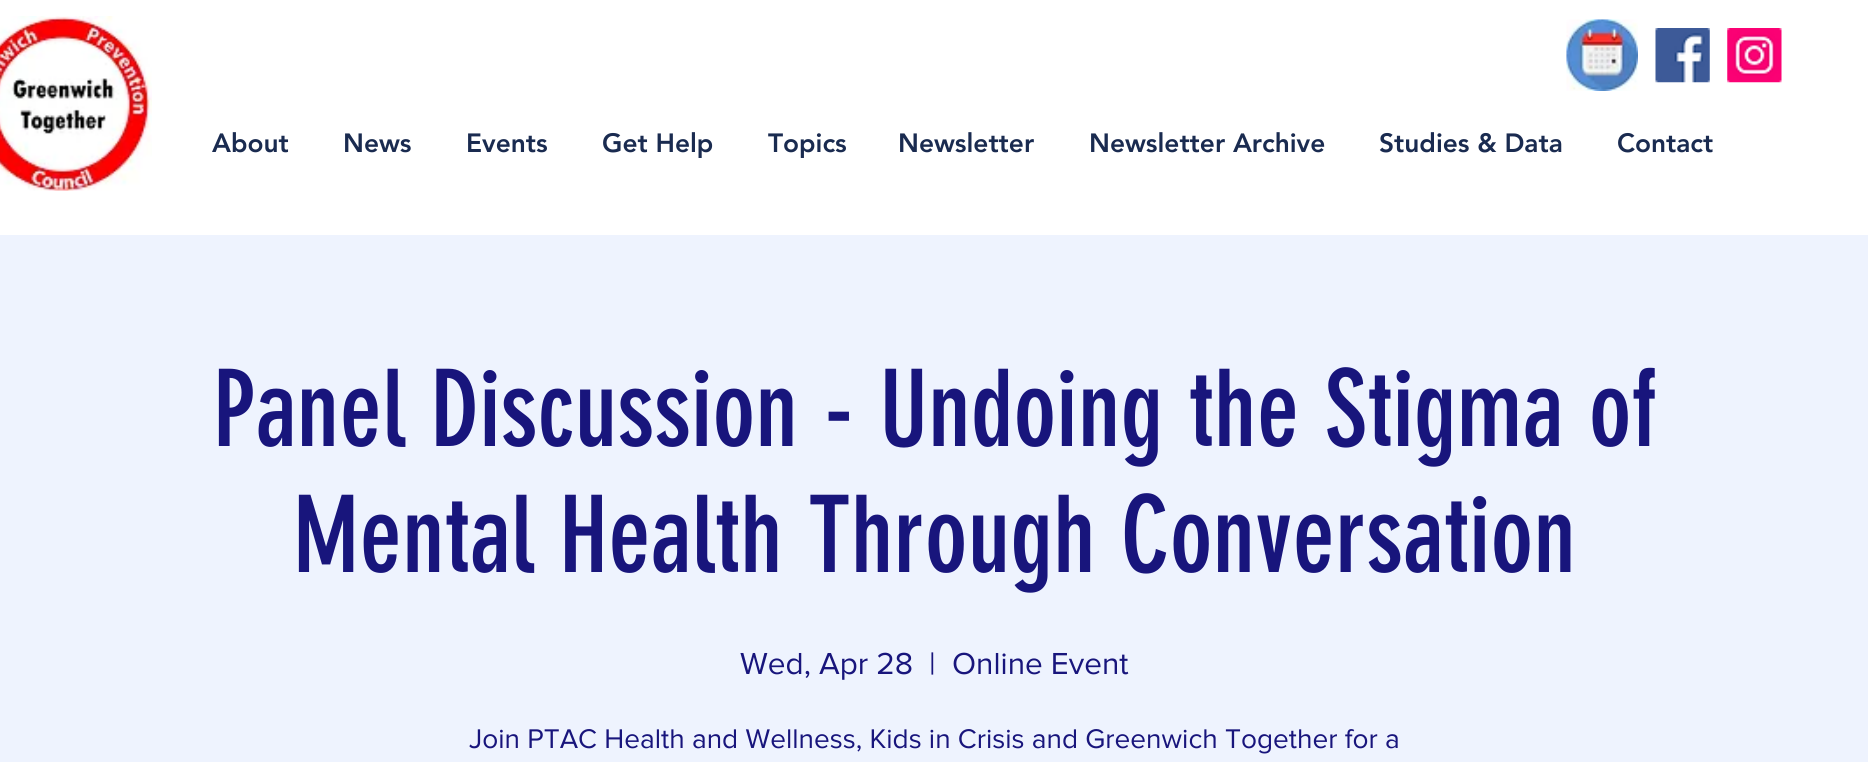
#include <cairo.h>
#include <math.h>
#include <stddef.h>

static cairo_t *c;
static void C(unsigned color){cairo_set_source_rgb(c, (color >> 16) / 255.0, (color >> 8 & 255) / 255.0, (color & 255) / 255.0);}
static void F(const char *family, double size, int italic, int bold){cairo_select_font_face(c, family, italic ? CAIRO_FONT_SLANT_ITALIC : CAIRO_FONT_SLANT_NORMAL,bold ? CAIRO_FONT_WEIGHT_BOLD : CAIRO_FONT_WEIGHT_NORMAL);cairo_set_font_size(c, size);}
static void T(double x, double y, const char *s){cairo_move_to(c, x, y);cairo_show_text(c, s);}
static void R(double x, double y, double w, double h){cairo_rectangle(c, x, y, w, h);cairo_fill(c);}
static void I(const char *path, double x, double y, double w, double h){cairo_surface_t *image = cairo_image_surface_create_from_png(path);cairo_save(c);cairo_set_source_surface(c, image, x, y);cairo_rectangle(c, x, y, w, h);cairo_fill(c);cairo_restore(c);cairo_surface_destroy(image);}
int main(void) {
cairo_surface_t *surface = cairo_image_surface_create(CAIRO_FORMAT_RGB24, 1868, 762);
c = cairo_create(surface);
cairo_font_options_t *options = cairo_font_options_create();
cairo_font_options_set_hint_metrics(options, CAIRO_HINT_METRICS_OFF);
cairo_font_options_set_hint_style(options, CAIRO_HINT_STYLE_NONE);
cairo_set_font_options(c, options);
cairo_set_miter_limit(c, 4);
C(0xffffff);
cairo_paint(c);
I("1.png",0,16,152,175);
I("2.png",1566,19,72,72);
I("3.png",1655,28,55,55);
I("4.png",1727,28,55,55);
F("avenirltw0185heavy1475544 Black",26.25,0,0);
C(0x1a2b50);
T(212,152,"About");
T(343,152,"News");
T(466,152,"Events");
T(602,152,"Get Help");
T(768,152,"Topics");
T(898,152,"Newsletter");
T(1089,152,"Newsletter Archive");
T(1379,152,"Studies & Data");
T(1617,152,"Contact");
C(0xeef3fe);
R(0,235,1868,527);
F("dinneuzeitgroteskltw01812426",105,0,0);
C(0x18157c);
T(213,446,"Panel Discussion - Undoing the Stigma of");
T(293,572,"Mental Health Through Conversation");
F("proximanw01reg",31.5,0,0);
T(740,674,"Wed, Apr 28");
T(929,674,"|");
T(952,674,"Online Event");
F("proximanw01reg",28,0,0);
T(469,748,"Join PTAC Health and Wellness, Kids in Crisis and Greenwich Together for a");
cairo_surface_write_to_png(surface, "o.png");
cairo_font_options_destroy(options);
cairo_destroy(c);
cairo_surface_destroy(surface);
return 0;
}
